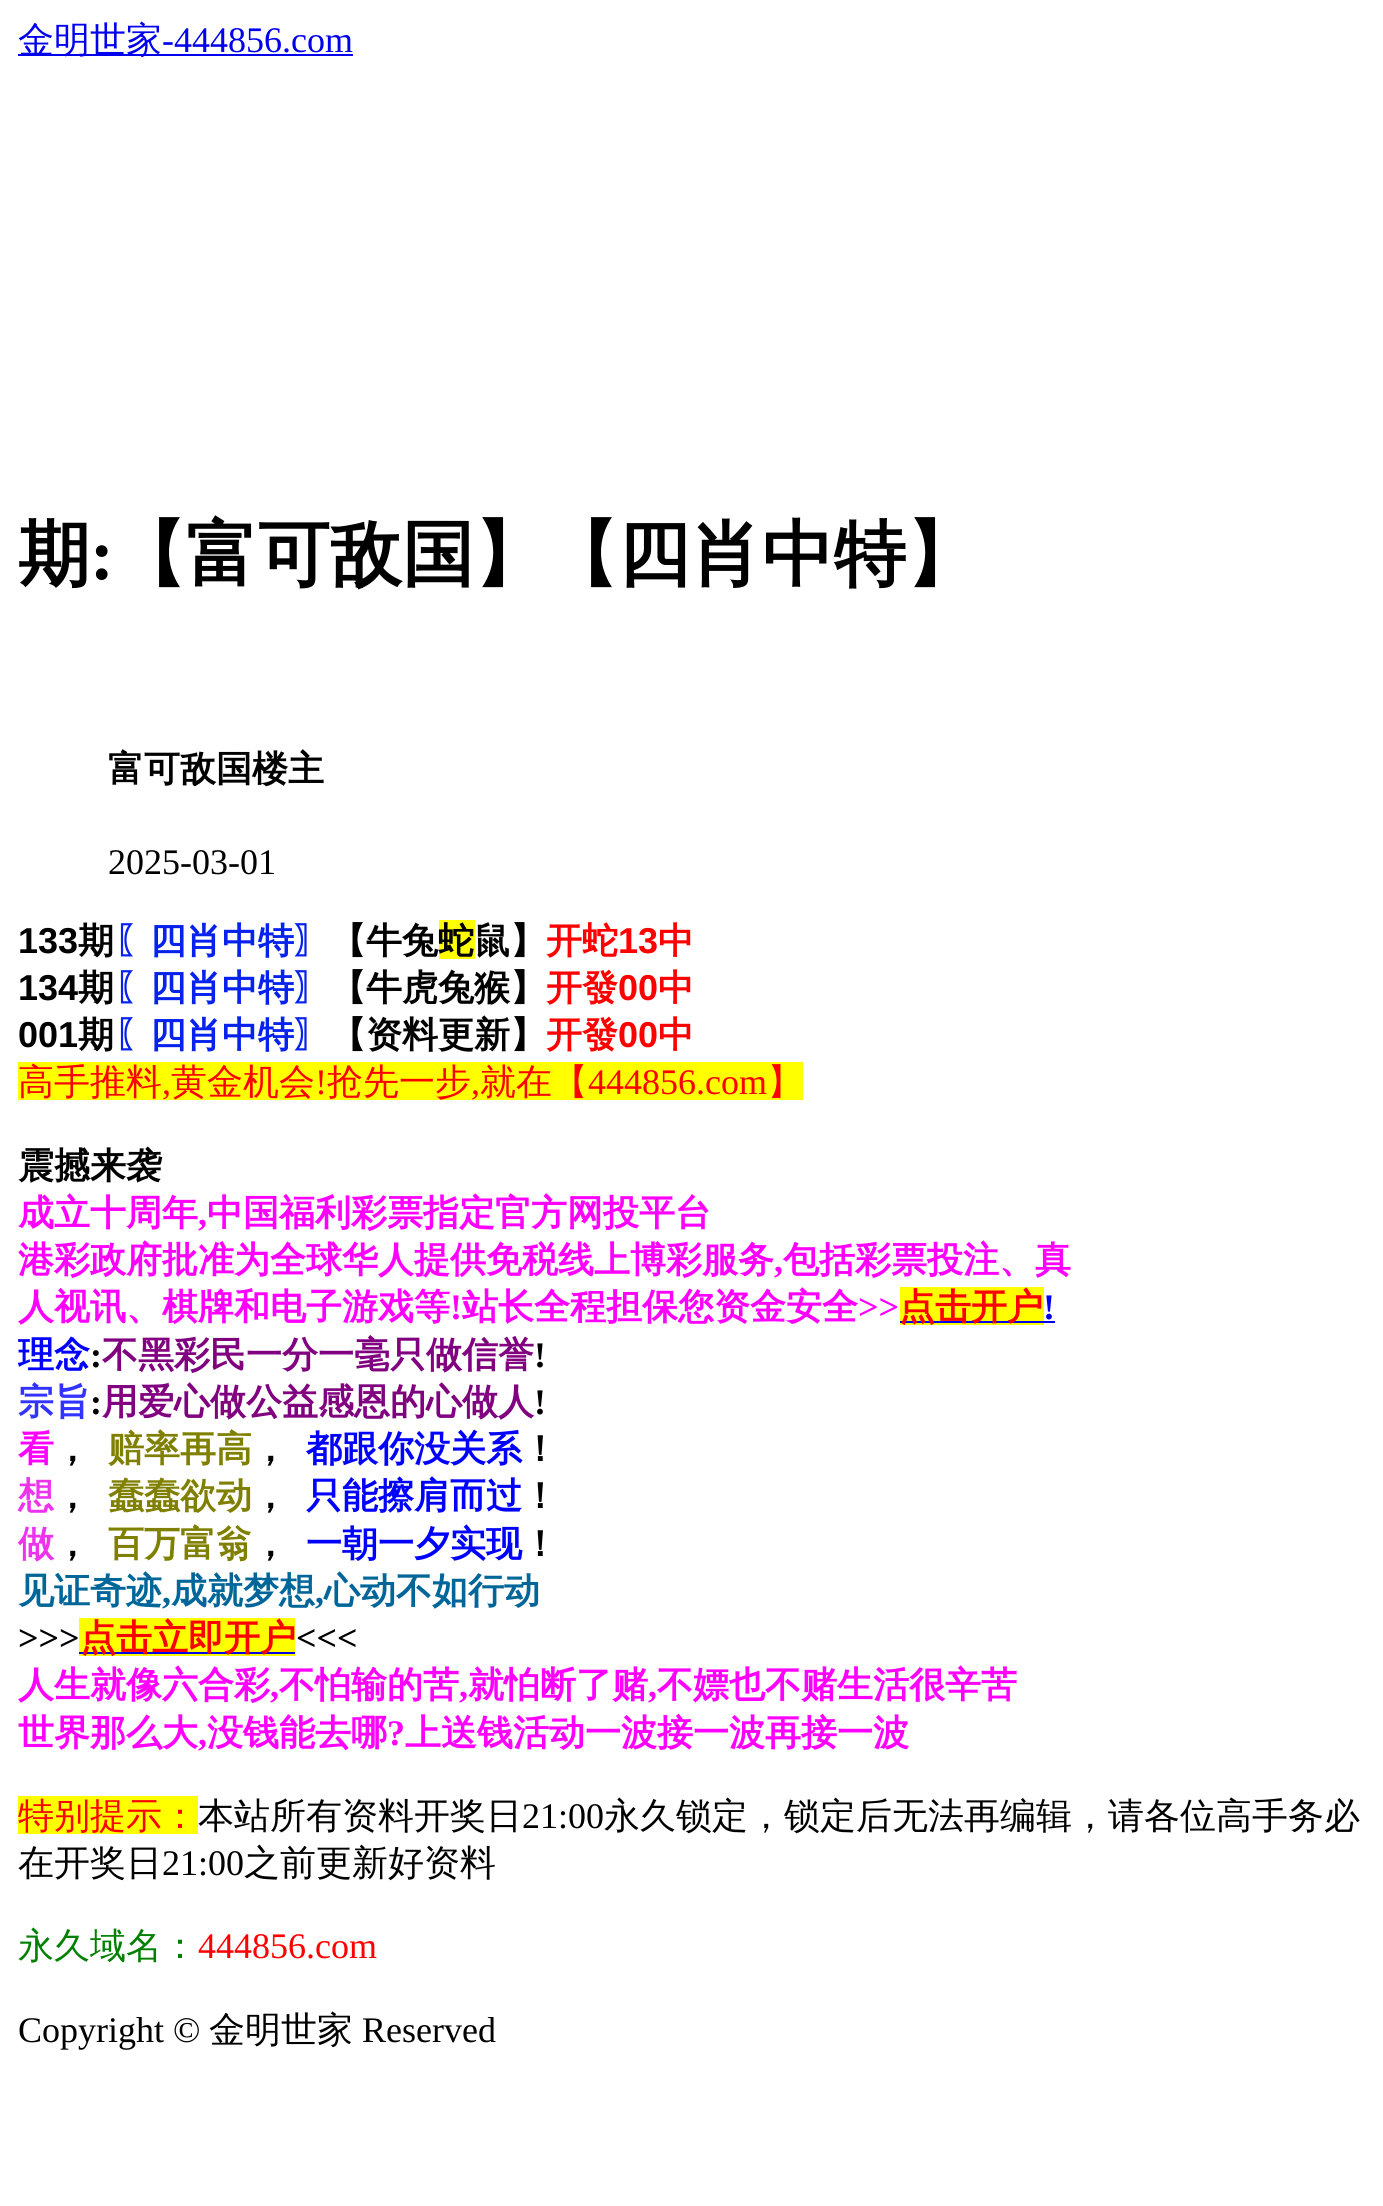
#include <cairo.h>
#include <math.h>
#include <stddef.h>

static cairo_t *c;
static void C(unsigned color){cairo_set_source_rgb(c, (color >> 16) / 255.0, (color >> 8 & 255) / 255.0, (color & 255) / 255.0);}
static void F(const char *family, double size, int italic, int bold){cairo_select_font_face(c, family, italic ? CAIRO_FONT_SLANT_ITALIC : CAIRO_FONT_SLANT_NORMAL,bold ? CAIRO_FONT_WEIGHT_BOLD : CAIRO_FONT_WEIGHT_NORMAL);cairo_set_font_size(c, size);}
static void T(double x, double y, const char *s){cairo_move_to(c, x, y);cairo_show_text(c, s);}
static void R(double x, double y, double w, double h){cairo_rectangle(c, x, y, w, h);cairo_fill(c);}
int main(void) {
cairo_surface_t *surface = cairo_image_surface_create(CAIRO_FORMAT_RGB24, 1383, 2206);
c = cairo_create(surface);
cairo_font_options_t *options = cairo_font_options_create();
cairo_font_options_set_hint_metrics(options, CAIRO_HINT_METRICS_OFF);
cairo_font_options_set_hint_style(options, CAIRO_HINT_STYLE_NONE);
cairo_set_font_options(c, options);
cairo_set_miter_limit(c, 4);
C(0xffffff);
cairo_paint(c);
C(0x0000ee);
R(18,54,335,2);
F("WenQuanYi Zen Hei Medium",36,0,0);
T(18,52,"金明世家");
F("Liberation Serif",36,0,0);
T(162,52,"-444856.com");
F("WenQuanYi Zen Hei",72,0,1);
C(0x000000);
T(18,579,"期");
F("Liberation Serif",72,0,1);
T(90,579,":");
F("WenQuanYi Zen Hei",72,0,1);
T(114,579,"【富可敌国】【四肖中特】");
F("WenQuanYi Zen Hei",36,0,1);
T(108,781,"富可敌国楼主");
F("Liberation Serif",36,0,0);
T(108,874,"2025-03-01");
F("Liberation Sans",36,0,1);
T(18,953,"133");
F("WenQuanYi Zen Hei",36,0,1);
T(78,953,"期");
C(0x0722ed);
T(114,953,"〖四肖中特〗");
C(0x000000);
T(330,953,"【牛兔");
C(0xffff00);
R(439,920,36,39);
C(0x000000);
T(438,953,"蛇鼠】");
C(0xff0000);
T(546,953,"开蛇");
F("Liberation Sans",36,0,1);
T(618,953,"13");
F("WenQuanYi Zen Hei",36,0,1);
T(658,953,"中");
F("Liberation Sans",36,0,1);
C(0x000000);
T(18,1000,"134");
F("WenQuanYi Zen Hei",36,0,1);
T(78,1000,"期");
C(0x0722ed);
T(114,1000,"〖四肖中特〗");
C(0x000000);
T(330,1000,"【牛虎兔猴】");
C(0xff0000);
T(546,1000,"开發");
F("Liberation Sans",36,0,1);
T(618,1000,"00");
F("WenQuanYi Zen Hei",36,0,1);
T(658,1000,"中");
F("Liberation Sans",36,0,1);
C(0x000000);
T(18,1047,"001");
F("WenQuanYi Zen Hei",36,0,1);
T(78,1047,"期");
C(0x0722ed);
T(114,1047,"〖四肖中特〗");
C(0x000000);
T(330,1047,"【资料更新】");
C(0xff0000);
T(546,1047,"开發");
F("Liberation Sans",36,0,1);
T(618,1047,"00");
F("WenQuanYi Zen Hei",36,0,1);
T(658,1047,"中");
C(0xffff00);
R(18,1062,785,38);
F("WenQuanYi Zen Hei Medium",36,0,0);
C(0xff0000);
T(18,1094,"高手推料");
F("Liberation Serif",36,0,0);
T(162,1094,",");
F("WenQuanYi Zen Hei Medium",36,0,0);
T(171,1094,"黄金机会");
F("Liberation Serif",36,0,0);
T(315,1094,"!");
F("WenQuanYi Zen Hei Medium",36,0,0);
T(327,1094,"抢先一步");
F("Liberation Serif",36,0,0);
T(471,1094,",");
F("WenQuanYi Zen Hei Medium",36,0,0);
T(480,1094,"就在【");
F("Liberation Serif",36,0,0);
T(588,1094,"444856.com");
F("WenQuanYi Zen Hei Medium",36,0,0);
T(767,1094,"】");
F("WenQuanYi Zen Hei",36,0,1);
C(0x000000);
T(18,1178,"震撼来袭");
C(0xff00ff);
T(18,1225,"成立十周年");
F("Liberation Serif",36,0,1);
T(198,1225,",");
F("WenQuanYi Zen Hei",36,0,1);
T(207,1225,"中国福利彩票指定官方网投平台");
T(18,1272,"港彩政府批准为全球华人提供免税线上博彩服务");
F("Liberation Serif",36,0,1);
T(774,1272,",");
F("WenQuanYi Zen Hei",36,0,1);
T(783,1272,"包括彩票投注、真");
T(18,1319,"人视讯、棋牌和电子游戏等");
F("Liberation Serif",36,0,1);
T(450,1319,"!");
F("WenQuanYi Zen Hei",36,0,1);
T(462,1319,"站长全程担保您资金安全");
F("Liberation Serif",36,0,1);
T(858,1319,">>");
C(0xffff00);
R(900,1287,144,38);
C(0x0000ee);
R(900,1321,155,2);
F("WenQuanYi Zen Hei",36,0,1);
C(0xff0000);
T(899,1319,"点击开户");
F("Liberation Serif",36,0,1);
C(0x0000ee);
T(1043,1319,"!");
F("WenQuanYi Zen Hei",36,0,1);
C(0x0000ff);
T(18,1367,"理念");
F("Liberation Serif",36,0,1);
C(0x000000);
T(90,1367,":");
F("WenQuanYi Zen Hei",36,0,1);
C(0x800080);
T(102,1367,"不黑彩民一分一毫只做信誉");
F("Liberation Serif",36,0,1);
C(0x000000);
T(534,1367,"!");
F("WenQuanYi Zen Hei",36,0,1);
C(0x3333ff);
T(18,1414,"宗旨");
F("Liberation Serif",36,0,1);
C(0x000000);
T(90,1414,":");
F("WenQuanYi Zen Hei",36,0,1);
C(0x800080);
T(102,1414,"用爱心做公益感恩的心做人");
F("Liberation Serif",36,0,1);
C(0x000000);
T(534,1414,"!");
F("WenQuanYi Zen Hei",36,0,1);
C(0xff00ff);
T(18,1461,"看");
C(0x000000);
T(54,1461,"，");
C(0x808000);
T(108,1461,"赔率再高");
C(0x000000);
T(252,1461,"，");
C(0x0000ff);
T(306,1461,"都跟你没关系");
C(0x000000);
T(522,1461,"！");
C(0xee33ee);
T(18,1508,"想");
C(0x000000);
T(54,1508,"，");
C(0x808000);
T(108,1508,"蠢蠢欲动");
C(0x000000);
T(252,1508,"，");
C(0x0000ff);
T(306,1508,"只能擦肩而过");
C(0x000000);
T(522,1508,"！");
C(0xee33ee);
T(18,1556,"做");
C(0x000000);
T(54,1556,"，");
C(0x808000);
T(108,1556,"百万富翁");
C(0x000000);
T(252,1556,"，");
C(0x0000ff);
T(306,1556,"一朝一夕实现");
C(0x000000);
T(522,1556,"！");
C(0x006699);
T(18,1603,"见证奇迹");
F("Liberation Serif",36,0,1);
T(162,1603,",");
F("WenQuanYi Zen Hei",36,0,1);
T(171,1603,"成就梦想");
F("Liberation Serif",36,0,1);
T(315,1603,",");
F("WenQuanYi Zen Hei",36,0,1);
T(324,1603,"心动不如行动");
F("Liberation Serif",36,0,1);
C(0x000000);
T(18,1650,">>>");
C(0xffff00);
R(79,1618,216,38);
C(0x0000ee);
R(79,1652,216,2);
F("WenQuanYi Zen Hei",36,0,1);
C(0xff0000);
T(80,1650,"点击立即开户");
F("Liberation Serif",36,0,1);
C(0x000000);
T(296,1650,"<<<");
F("WenQuanYi Zen Hei",36,0,1);
C(0xff00ff);
T(18,1697,"人生就像六合彩");
F("Liberation Serif",36,0,1);
T(270,1697,",");
F("WenQuanYi Zen Hei",36,0,1);
T(279,1697,"不怕输的苦");
F("Liberation Serif",36,0,1);
T(459,1697,",");
F("WenQuanYi Zen Hei",36,0,1);
T(468,1697,"就怕断了赌");
F("Liberation Serif",36,0,1);
T(648,1697,",");
F("WenQuanYi Zen Hei",36,0,1);
T(657,1697,"不嫖也不赌生活很辛苦");
T(18,1745,"世界那么大");
F("Liberation Serif",36,0,1);
T(198,1745,",");
F("WenQuanYi Zen Hei",36,0,1);
T(207,1745,"没钱能去哪");
F("Liberation Serif",36,0,1);
T(387,1745,"?");
F("WenQuanYi Zen Hei",36,0,1);
T(405,1745,"上送钱活动一波接一波再接一波");
C(0xffff00);
R(18,1796,180,38);
F("WenQuanYi Zen Hei Medium",36,0,0);
C(0xff0000);
T(18,1828,"特别提示：");
C(0x000000);
T(198,1828,"本站所有资料开奖日");
F("Liberation Serif",36,0,0);
T(522,1828,"21:00");
F("WenQuanYi Zen Hei Medium",36,0,0);
T(604,1828,"永久锁定，锁定后无法再编辑，请各位高手务必");
T(18,1875,"在开奖日");
F("Liberation Serif",36,0,0);
T(162,1875,"21:00");
F("WenQuanYi Zen Hei Medium",36,0,0);
T(244,1875,"之前更新好资料");
C(0x008000);
T(18,1958,"永久域名：");
F("Liberation Serif",36,0,0);
C(0xff0000);
T(198,1958,"444856.com");
C(0x000000);
T(18,2042,"Copyright ©");
F("WenQuanYi Zen Hei Medium",36,0,0);
T(209,2042,"金明世家");
F("Liberation Serif",36,0,0);
T(362,2042,"Reserved");
cairo_surface_write_to_png(surface, "o.png");
cairo_font_options_destroy(options);
cairo_destroy(c);
cairo_surface_destroy(surface);
return 0;
}
